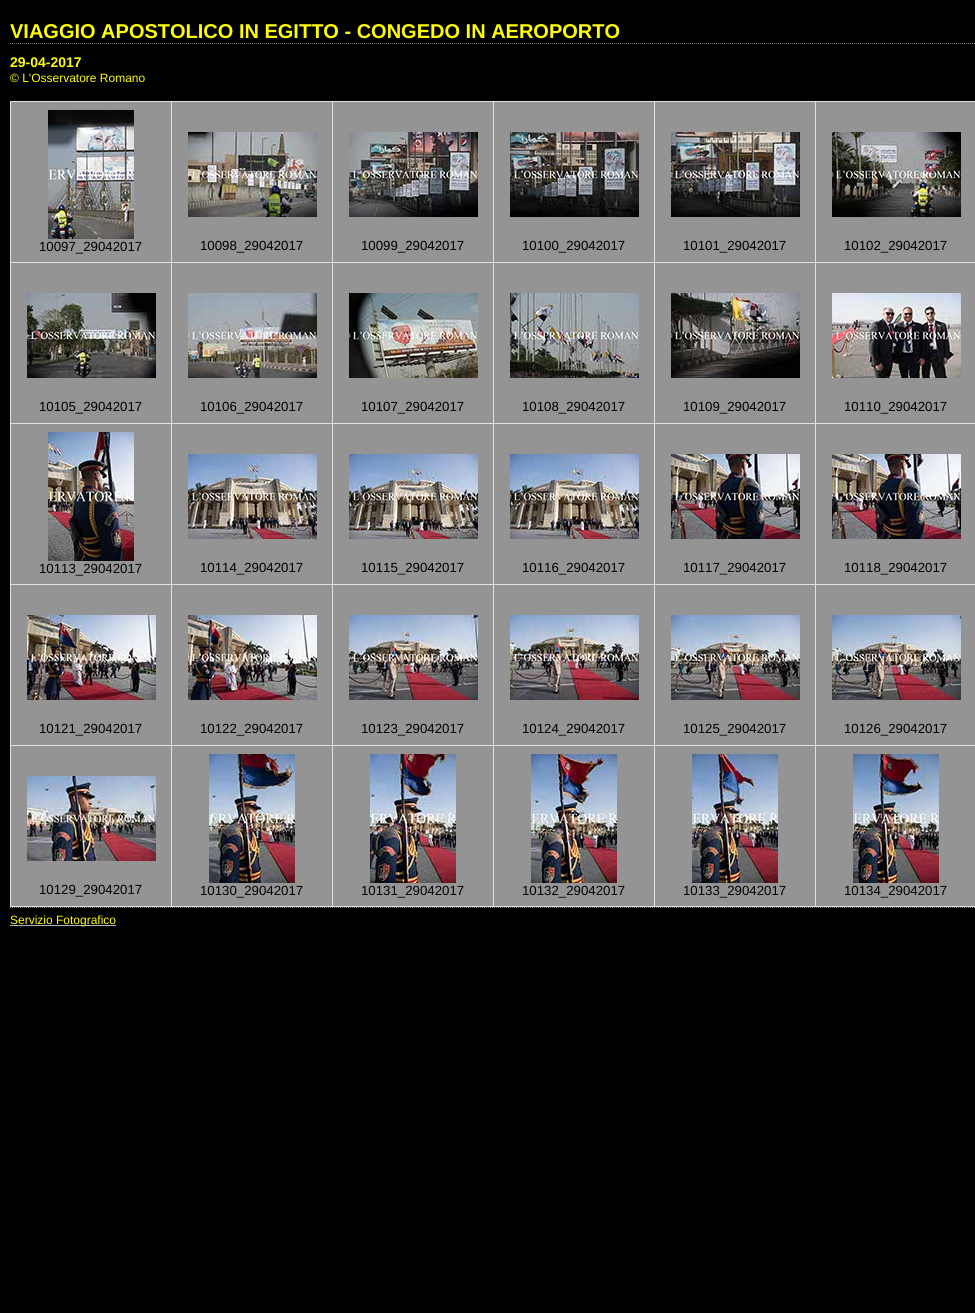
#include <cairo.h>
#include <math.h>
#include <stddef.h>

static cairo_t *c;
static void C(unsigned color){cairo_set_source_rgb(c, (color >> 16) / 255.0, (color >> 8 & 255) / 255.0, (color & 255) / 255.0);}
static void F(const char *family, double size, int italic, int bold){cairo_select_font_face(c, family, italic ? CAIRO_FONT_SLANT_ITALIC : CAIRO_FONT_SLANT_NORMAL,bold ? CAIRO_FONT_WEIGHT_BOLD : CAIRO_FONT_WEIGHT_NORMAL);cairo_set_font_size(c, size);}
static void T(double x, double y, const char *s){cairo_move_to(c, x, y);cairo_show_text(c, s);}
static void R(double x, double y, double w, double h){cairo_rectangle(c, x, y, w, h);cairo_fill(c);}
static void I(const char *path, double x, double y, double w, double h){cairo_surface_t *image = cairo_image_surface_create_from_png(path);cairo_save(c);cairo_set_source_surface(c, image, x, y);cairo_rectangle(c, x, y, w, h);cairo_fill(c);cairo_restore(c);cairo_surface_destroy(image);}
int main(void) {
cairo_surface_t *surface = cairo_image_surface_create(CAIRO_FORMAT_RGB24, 975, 1313);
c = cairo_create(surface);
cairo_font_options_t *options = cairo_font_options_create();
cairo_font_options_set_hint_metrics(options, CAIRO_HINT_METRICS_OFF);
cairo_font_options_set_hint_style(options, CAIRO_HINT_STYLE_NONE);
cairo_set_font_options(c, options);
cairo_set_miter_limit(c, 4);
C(0x000000);
cairo_paint(c);
cairo_new_path(c);
cairo_move_to(c,10,43.5);
cairo_line_to(c,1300,43.5);
C(0x7f7f7f);
cairo_set_line_width(c,1);
cairo_set_dash(c,(double[]){1,1},2,0);
cairo_stroke(c);
F("Liberation Sans",20,0,1);
C(0xffff00);
T(10,38,"VIAGGIO APOSTOLICO IN EGITTO - CONGEDO IN AEROPORTO");
F("Liberation Sans",14,0,1);
T(10,67,"29-04-2017");
F("Liberation Sans",12,0,0);
T(10,82,"© L'Osservatore Romano");
C(0x949494);
R(11,102,160,160);
C(0xe2e2e2);
R(10,101,965,1);
R(10,101,1,161);
I("1.png",48,110,86,129);
F("Liberation Sans",13.25,0,0);
C(0x000000);
T(39,251,"10097_29042017");
C(0x949494);
R(172,102,160,160);
C(0xe2e2e2);
R(171,101,1,161);
I("2.png",188,132,129,85);
C(0x000000);
T(200,250,"10098_29042017");
C(0x949494);
R(333,102,160,160);
C(0xe2e2e2);
R(332,101,1,161);
I("3.png",349,132,129,85);
C(0x000000);
T(361,250,"10099_29042017");
C(0x949494);
R(494,102,160,160);
C(0xe2e2e2);
R(493,101,1,161);
I("4.png",510,132,129,85);
C(0x000000);
T(522,250,"10100_29042017");
C(0x949494);
R(655,102,160,160);
C(0xe2e2e2);
R(654,101,1,161);
I("5.png",671,132,129,85);
C(0x000000);
T(683,250,"10101_29042017");
C(0x949494);
R(816,102,159,160);
C(0xe2e2e2);
R(815,101,1,161);
I("6.png",832,132,129,85);
C(0x000000);
T(844,250,"10102_29042017");
C(0x949494);
R(11,263,160,160);
C(0xe2e2e2);
R(10,262,965,1);
R(10,262,1,161);
I("7.png",27,293,129,85);
C(0x000000);
T(39,411,"10105_29042017");
C(0x949494);
R(172,263,160,160);
C(0xe2e2e2);
R(171,262,1,161);
I("8.png",188,293,129,85);
C(0x000000);
T(200,411,"10106_29042017");
C(0x949494);
R(333,263,160,160);
C(0xe2e2e2);
R(332,262,1,161);
I("9.png",349,293,129,85);
C(0x000000);
T(361,411,"10107_29042017");
C(0x949494);
R(494,263,160,160);
C(0xe2e2e2);
R(493,262,1,161);
I("10.png",510,293,129,85);
C(0x000000);
T(522,411,"10108_29042017");
C(0x949494);
R(655,263,160,160);
C(0xe2e2e2);
R(654,262,1,161);
I("11.png",671,293,129,85);
C(0x000000);
T(683,411,"10109_29042017");
C(0x949494);
R(816,263,159,160);
C(0xe2e2e2);
R(815,262,1,161);
I("12.png",832,293,129,85);
C(0x000000);
T(844,411,"10110_29042017");
C(0x949494);
R(11,424,160,160);
C(0xe2e2e2);
R(10,423,965,1);
R(10,423,1,161);
I("13.png",48,432,86,129);
C(0x000000);
T(39,573,"10113_29042017");
C(0x949494);
R(172,424,160,160);
C(0xe2e2e2);
R(171,423,1,161);
I("14.png",188,454,129,85);
C(0x000000);
T(200,572,"10114_29042017");
C(0x949494);
R(333,424,160,160);
C(0xe2e2e2);
R(332,423,1,161);
I("15.png",349,454,129,85);
C(0x000000);
T(361,572,"10115_29042017");
C(0x949494);
R(494,424,160,160);
C(0xe2e2e2);
R(493,423,1,161);
I("16.png",510,454,129,85);
C(0x000000);
T(522,572,"10116_29042017");
C(0x949494);
R(655,424,160,160);
C(0xe2e2e2);
R(654,423,1,161);
I("17.png",671,454,129,85);
C(0x000000);
T(683,572,"10117_29042017");
C(0x949494);
R(816,424,159,160);
C(0xe2e2e2);
R(815,423,1,161);
I("18.png",832,454,129,85);
C(0x000000);
T(844,572,"10118_29042017");
C(0x949494);
R(11,585,160,160);
C(0xe2e2e2);
R(10,584,965,1);
R(10,584,1,161);
I("19.png",27,615,129,85);
C(0x000000);
T(39,733,"10121_29042017");
C(0x949494);
R(172,585,160,160);
C(0xe2e2e2);
R(171,584,1,161);
I("20.png",188,615,129,85);
C(0x000000);
T(200,733,"10122_29042017");
C(0x949494);
R(333,585,160,160);
C(0xe2e2e2);
R(332,584,1,161);
I("21.png",349,615,129,85);
C(0x000000);
T(361,733,"10123_29042017");
C(0x949494);
R(494,585,160,160);
C(0xe2e2e2);
R(493,584,1,161);
I("22.png",510,615,129,85);
C(0x000000);
T(522,733,"10124_29042017");
C(0x949494);
R(655,585,160,160);
C(0xe2e2e2);
R(654,584,1,161);
I("23.png",671,615,129,85);
C(0x000000);
T(683,733,"10125_29042017");
C(0x949494);
R(816,585,159,160);
C(0xe2e2e2);
R(815,584,1,161);
I("24.png",832,615,129,85);
C(0x000000);
T(844,733,"10126_29042017");
C(0x949494);
R(11,746,160,160);
C(0xe2e2e2);
R(10,745,965,1);
R(10,906,965,1);
R(10,745,1,162);
I("25.png",27,776,129,85);
C(0x000000);
T(39,894,"10129_29042017");
C(0x949494);
R(172,746,160,160);
C(0xe2e2e2);
R(171,745,1,162);
I("26.png",209,754,86,129);
C(0x000000);
T(200,895,"10130_29042017");
C(0x949494);
R(333,746,160,160);
C(0xe2e2e2);
R(332,745,1,162);
I("27.png",370,754,86,129);
C(0x000000);
T(361,895,"10131_29042017");
C(0x949494);
R(494,746,160,160);
C(0xe2e2e2);
R(493,745,1,162);
I("28.png",531,754,86,129);
C(0x000000);
T(522,895,"10132_29042017");
C(0x949494);
R(655,746,160,160);
C(0xe2e2e2);
R(654,745,1,162);
I("29.png",692,754,86,129);
C(0x000000);
T(683,895,"10133_29042017");
C(0x949494);
R(816,746,159,160);
C(0xe2e2e2);
R(815,745,1,162);
I("30.png",853,754,86,129);
C(0x000000);
T(844,895,"10134_29042017");
cairo_new_path(c);
cairo_move_to(c,10,907.5);
cairo_line_to(c,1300,907.5);
C(0x7f7f7f);
cairo_stroke(c);
C(0xb3b3b3);
R(10,925,106,1);
F("Liberation Sans",12,0,0);
C(0xffff00);
T(10,924,"Servizio Fotografico");
cairo_surface_write_to_png(surface, "o.png");
cairo_font_options_destroy(options);
cairo_destroy(c);
cairo_surface_destroy(surface);
return 0;
}
